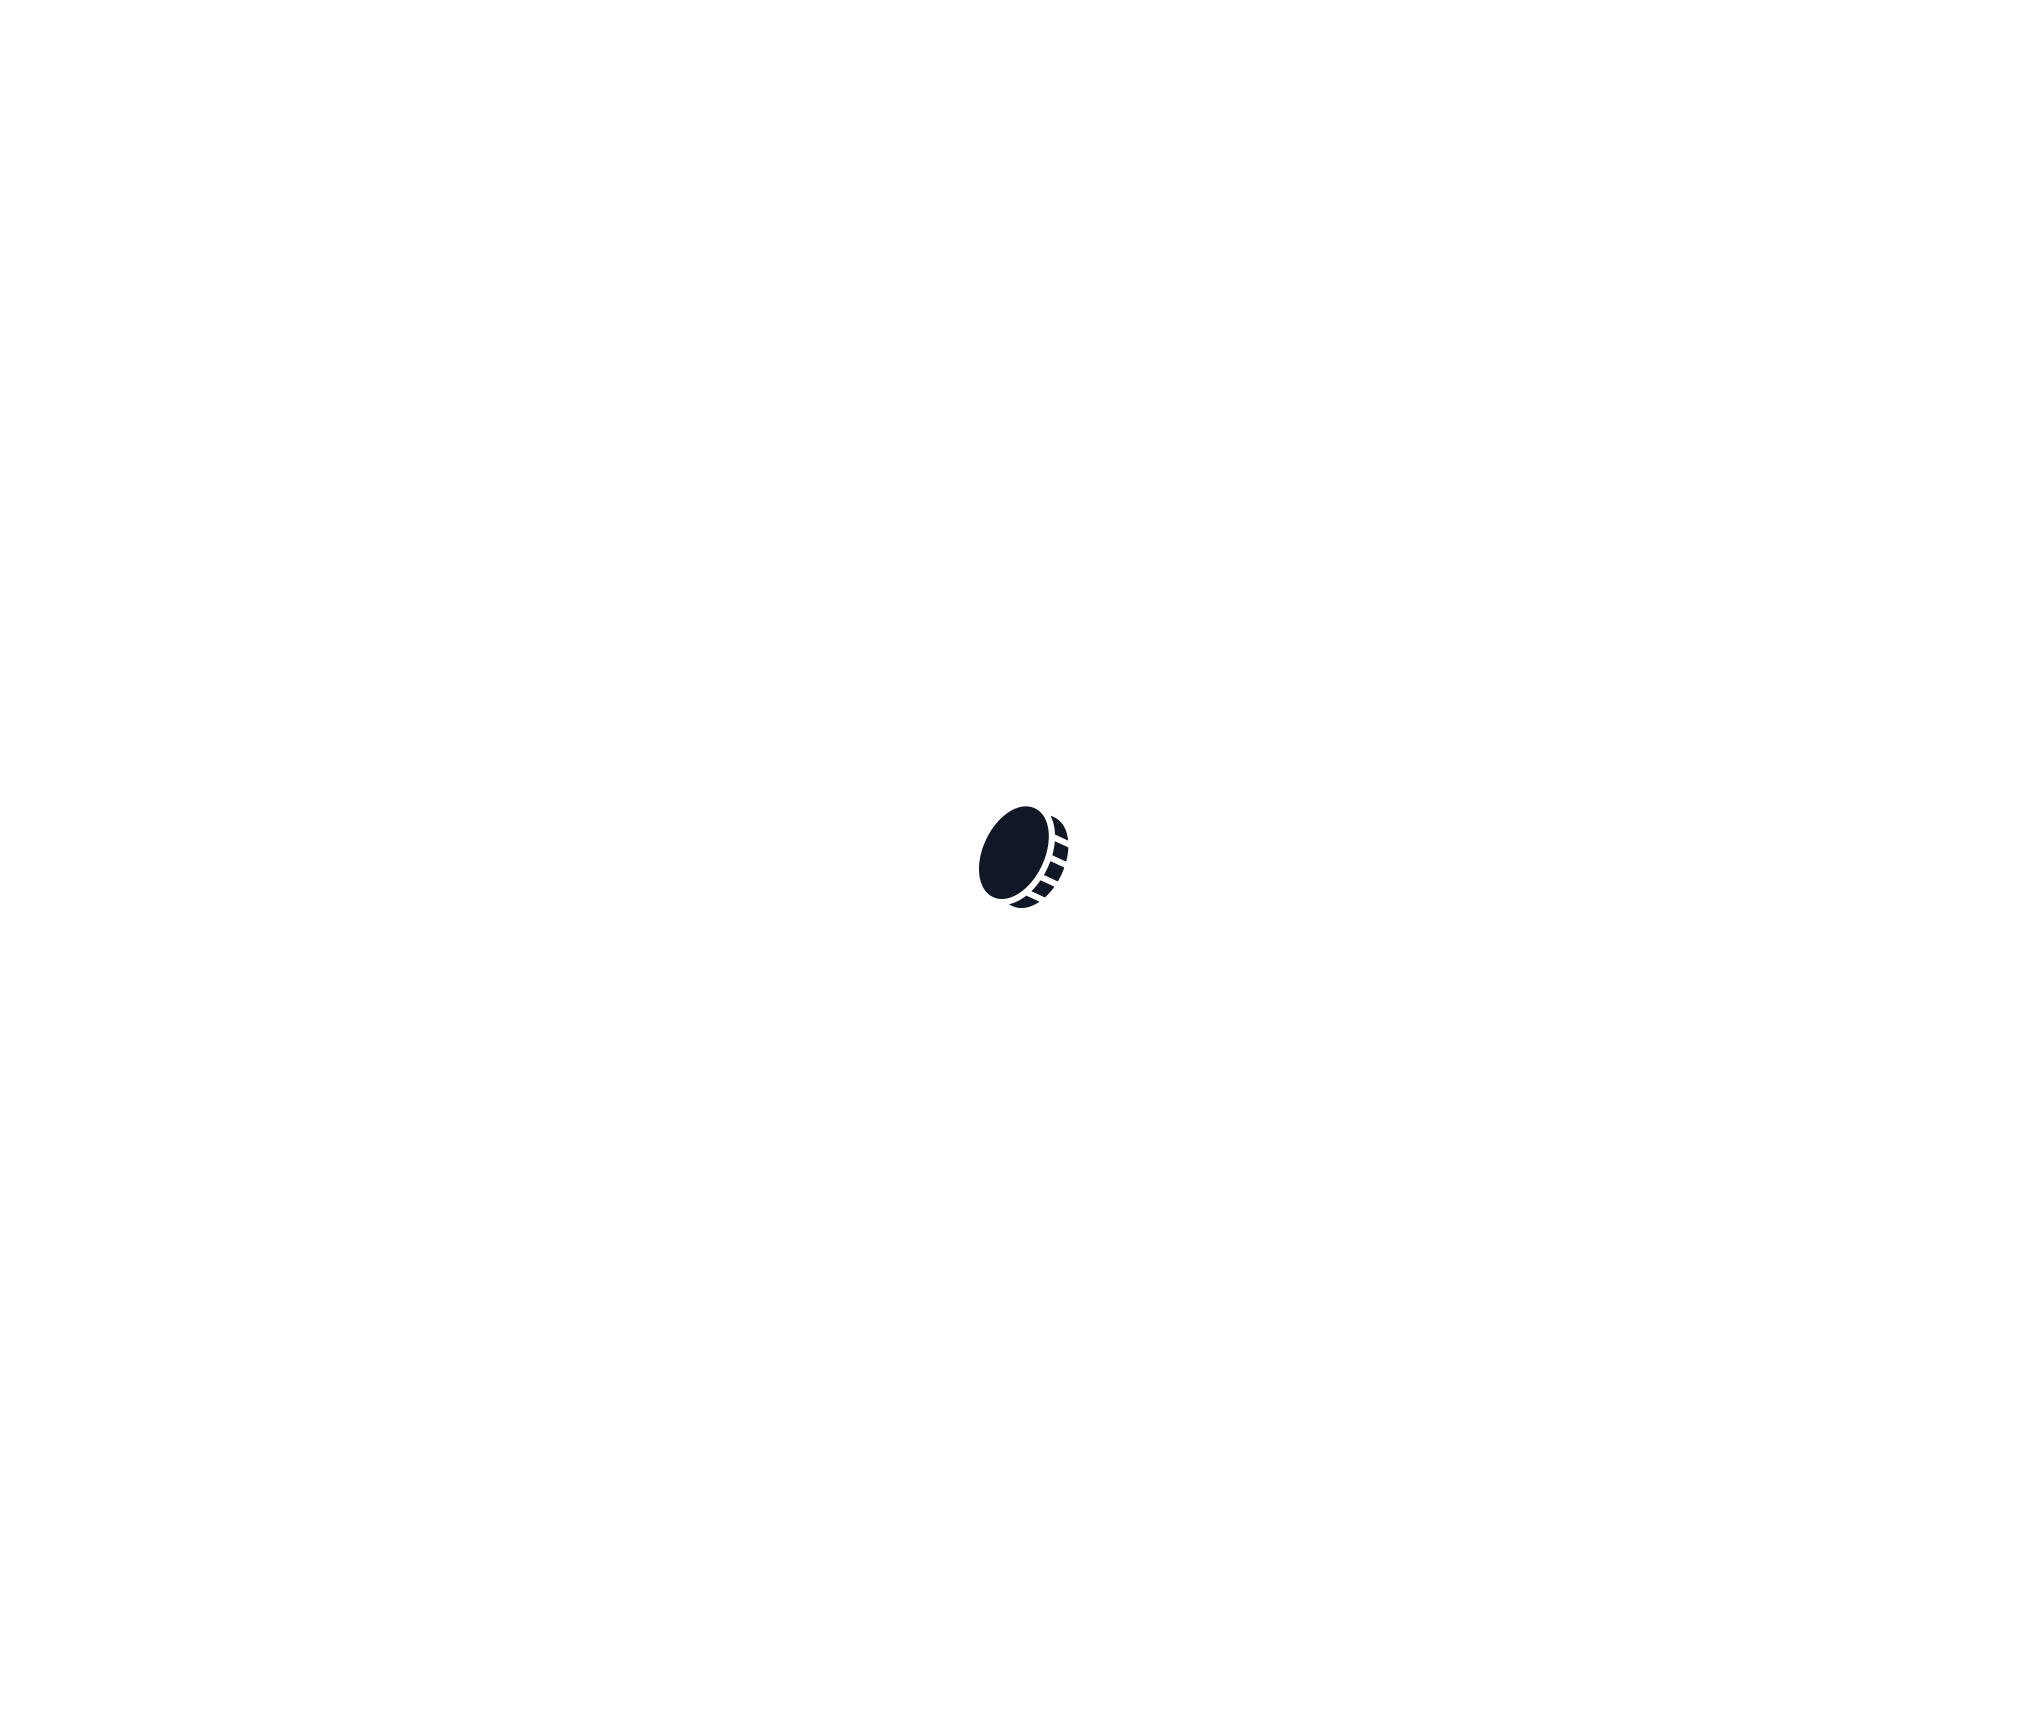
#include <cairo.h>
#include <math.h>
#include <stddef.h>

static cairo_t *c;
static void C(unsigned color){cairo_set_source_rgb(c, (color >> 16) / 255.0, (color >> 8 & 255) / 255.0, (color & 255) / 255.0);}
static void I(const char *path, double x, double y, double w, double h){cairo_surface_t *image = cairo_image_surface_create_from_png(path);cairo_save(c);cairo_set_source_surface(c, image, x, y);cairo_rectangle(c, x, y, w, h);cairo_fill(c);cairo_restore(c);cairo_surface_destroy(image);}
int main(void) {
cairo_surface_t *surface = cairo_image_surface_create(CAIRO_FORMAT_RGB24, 2044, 1712);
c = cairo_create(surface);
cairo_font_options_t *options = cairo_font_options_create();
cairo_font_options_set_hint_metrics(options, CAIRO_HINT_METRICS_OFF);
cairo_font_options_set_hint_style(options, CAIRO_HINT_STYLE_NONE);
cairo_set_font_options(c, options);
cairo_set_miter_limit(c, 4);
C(0xffffff);
cairo_paint(c);
I("1.png",979,806,90,103);
cairo_surface_write_to_png(surface, "o.png");
cairo_font_options_destroy(options);
cairo_destroy(c);
cairo_surface_destroy(surface);
return 0;
}
